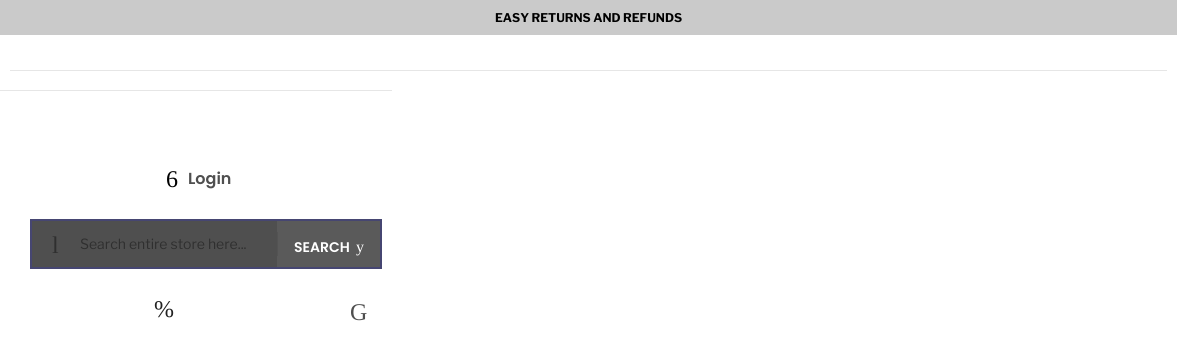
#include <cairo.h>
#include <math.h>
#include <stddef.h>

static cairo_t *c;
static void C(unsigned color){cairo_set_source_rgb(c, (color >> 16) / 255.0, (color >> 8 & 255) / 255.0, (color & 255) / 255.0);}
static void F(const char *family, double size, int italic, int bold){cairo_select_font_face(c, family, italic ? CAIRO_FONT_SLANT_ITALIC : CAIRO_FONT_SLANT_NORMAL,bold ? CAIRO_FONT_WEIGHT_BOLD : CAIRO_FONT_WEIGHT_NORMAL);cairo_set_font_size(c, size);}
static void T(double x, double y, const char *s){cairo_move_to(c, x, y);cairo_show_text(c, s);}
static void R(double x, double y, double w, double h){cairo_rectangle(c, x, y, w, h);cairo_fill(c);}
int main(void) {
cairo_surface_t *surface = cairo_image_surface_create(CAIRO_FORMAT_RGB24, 1177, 358);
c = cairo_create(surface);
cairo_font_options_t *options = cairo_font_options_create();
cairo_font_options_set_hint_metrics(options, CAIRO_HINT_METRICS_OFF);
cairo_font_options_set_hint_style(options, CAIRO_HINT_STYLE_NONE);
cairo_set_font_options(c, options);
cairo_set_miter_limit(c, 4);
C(0xffffff);
cairo_paint(c);
C(0xcacaca);
R(0,0,1177,35);
F("Libre Franklin",12,0,1);
C(0x000000);
T(495,22,"EASY RETURNS AND REFUNDS");
C(0xe6e6e6);
R(10,70,1157,1);
R(0,90,392,1);
F("Liberation Serif",24,0,0);
C(0x000000);
T(166,187,"6");
F("Poppins SemiBold",16,0,0);
C(0x4f4f4f);
T(188,184,"Login");
R(32,221,245,46);
cairo_rectangle(c,31,220,350,48);
C(0x464672);
cairo_stroke(c);
F("Liberation Serif",24,0,0);
C(0x2f2f2f);
T(52,253,"l");
F("Libre Franklin",14,0,0);
T(80,249,"Search entire store here...");
C(0x5a5a5a);
R(277,221,103,46);
C(0x535353);
R(277,232,1,24);
F("Poppins SemiBold",14,0,0);
C(0xffffff);
T(294,252,"SEARCH");
F("Liberation Serif",16,0,0);
T(356,252,"y");
F("Liberation Serif",24,0,0);
C(0x222222);
T(154,317,"%");
C(0x4f4f4f);
T(350,320,"G");
cairo_surface_write_to_png(surface, "o.png");
cairo_font_options_destroy(options);
cairo_destroy(c);
cairo_surface_destroy(surface);
return 0;
}
